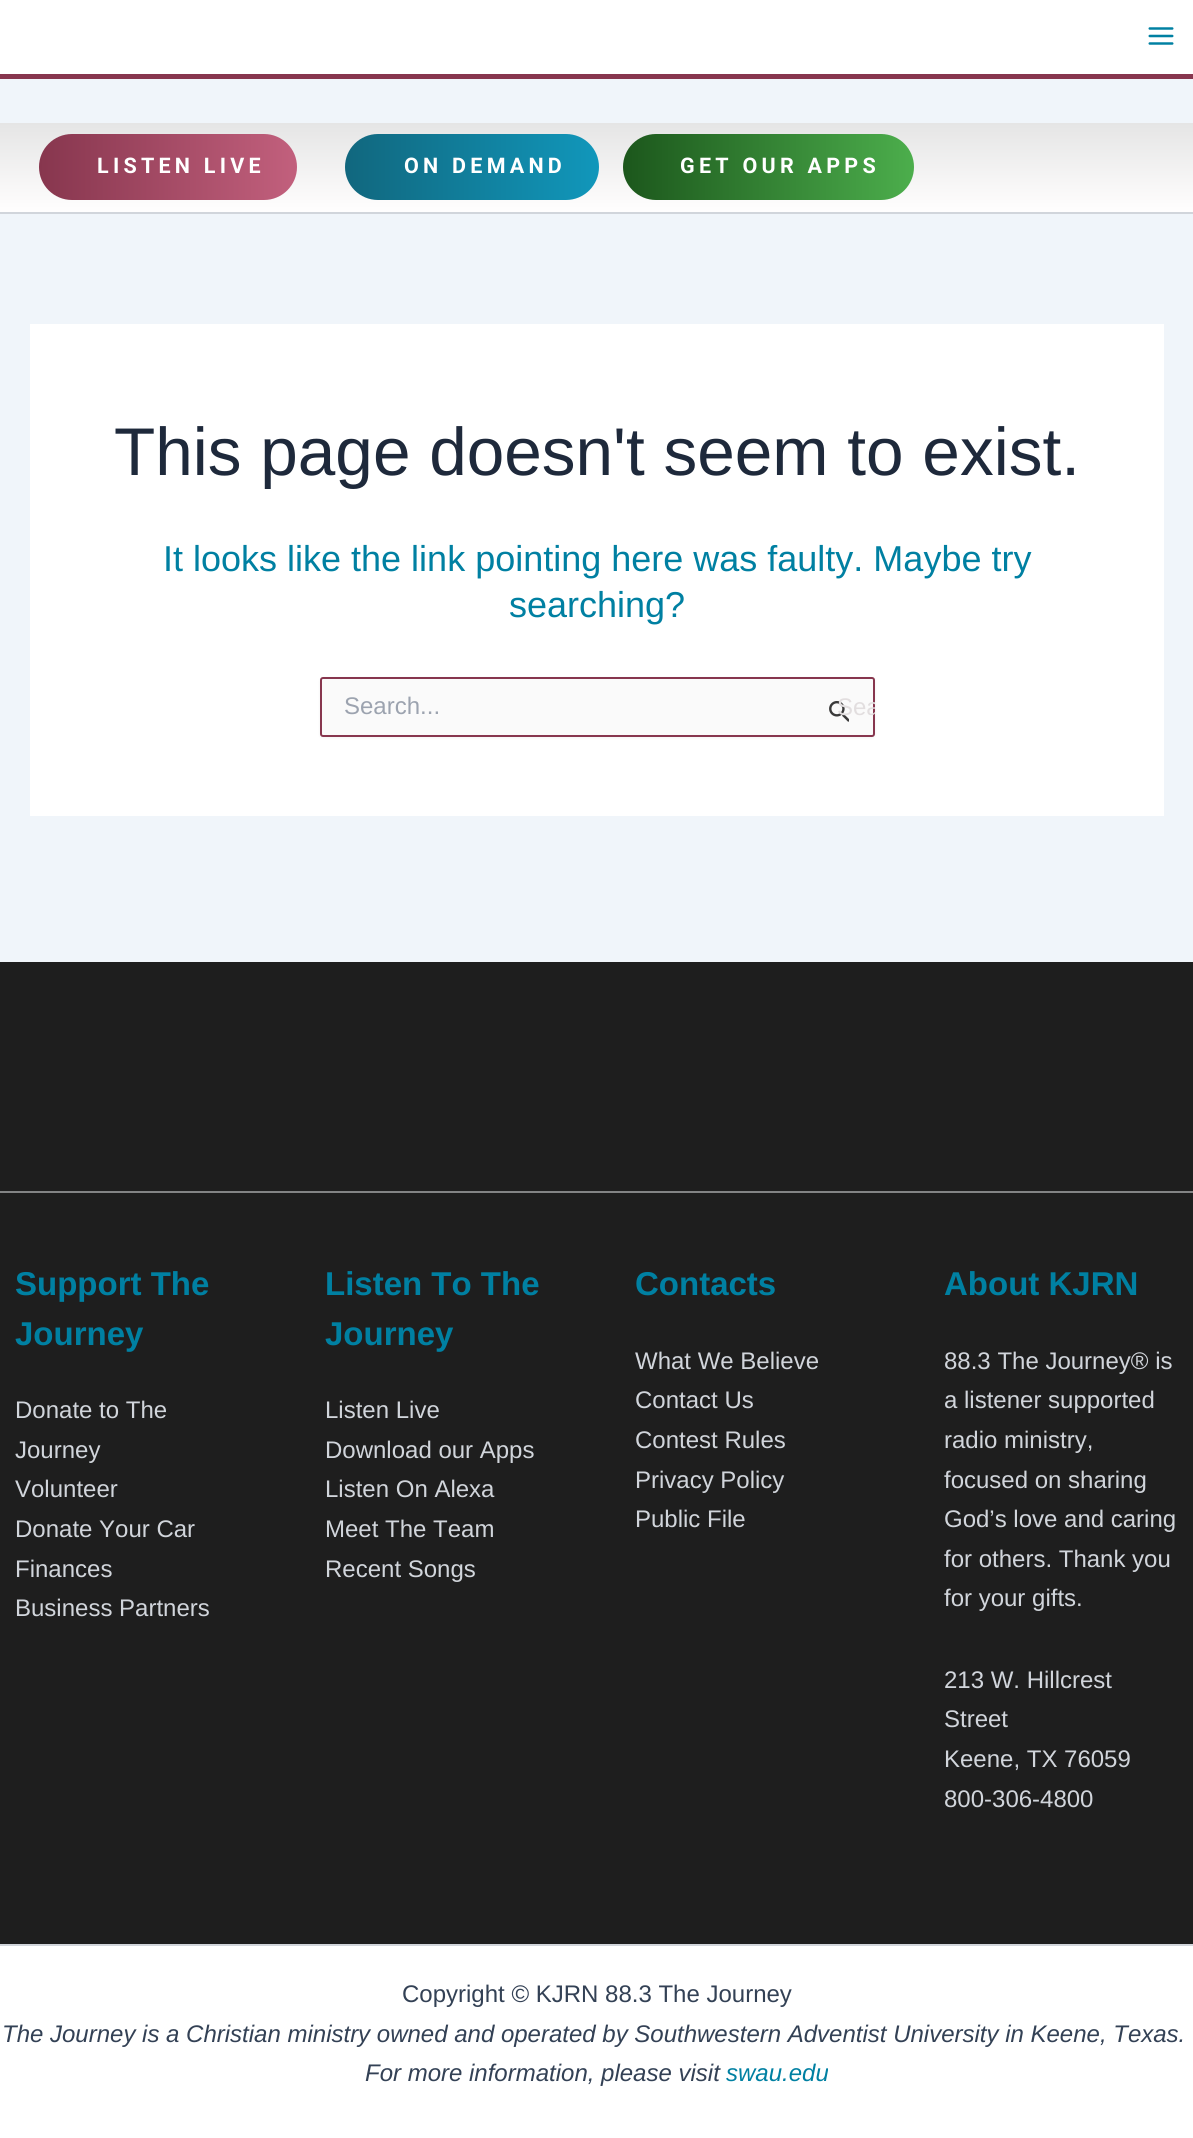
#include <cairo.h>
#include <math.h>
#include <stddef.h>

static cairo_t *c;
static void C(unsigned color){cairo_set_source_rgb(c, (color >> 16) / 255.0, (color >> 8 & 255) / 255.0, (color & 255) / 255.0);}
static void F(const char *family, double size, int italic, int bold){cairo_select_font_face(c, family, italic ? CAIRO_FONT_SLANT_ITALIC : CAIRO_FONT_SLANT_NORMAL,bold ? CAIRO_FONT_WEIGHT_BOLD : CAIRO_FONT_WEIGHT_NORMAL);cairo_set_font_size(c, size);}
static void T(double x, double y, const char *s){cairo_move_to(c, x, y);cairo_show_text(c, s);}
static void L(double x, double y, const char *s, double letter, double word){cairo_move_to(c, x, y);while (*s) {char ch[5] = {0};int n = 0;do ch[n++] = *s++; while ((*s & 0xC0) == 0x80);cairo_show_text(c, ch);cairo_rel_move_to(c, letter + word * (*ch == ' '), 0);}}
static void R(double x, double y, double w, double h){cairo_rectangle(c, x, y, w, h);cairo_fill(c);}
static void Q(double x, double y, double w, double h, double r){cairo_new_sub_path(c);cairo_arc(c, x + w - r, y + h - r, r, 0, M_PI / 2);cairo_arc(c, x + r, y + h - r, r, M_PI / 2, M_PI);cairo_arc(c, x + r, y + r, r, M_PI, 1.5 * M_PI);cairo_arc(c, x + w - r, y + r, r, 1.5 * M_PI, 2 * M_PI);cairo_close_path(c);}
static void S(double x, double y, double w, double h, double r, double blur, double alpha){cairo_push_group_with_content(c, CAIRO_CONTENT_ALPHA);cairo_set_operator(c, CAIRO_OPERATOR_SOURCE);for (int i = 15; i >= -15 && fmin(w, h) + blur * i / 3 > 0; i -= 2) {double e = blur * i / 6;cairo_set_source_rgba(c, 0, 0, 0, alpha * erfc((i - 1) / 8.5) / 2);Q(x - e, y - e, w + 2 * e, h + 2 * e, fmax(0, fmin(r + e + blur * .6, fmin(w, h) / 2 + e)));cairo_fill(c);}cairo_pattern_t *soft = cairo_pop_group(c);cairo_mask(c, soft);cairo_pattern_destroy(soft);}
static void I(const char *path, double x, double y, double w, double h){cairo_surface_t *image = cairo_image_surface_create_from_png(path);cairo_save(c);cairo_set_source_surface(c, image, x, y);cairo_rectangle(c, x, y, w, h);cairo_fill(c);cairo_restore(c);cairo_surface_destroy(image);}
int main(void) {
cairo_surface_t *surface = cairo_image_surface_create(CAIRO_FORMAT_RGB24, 1193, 2138);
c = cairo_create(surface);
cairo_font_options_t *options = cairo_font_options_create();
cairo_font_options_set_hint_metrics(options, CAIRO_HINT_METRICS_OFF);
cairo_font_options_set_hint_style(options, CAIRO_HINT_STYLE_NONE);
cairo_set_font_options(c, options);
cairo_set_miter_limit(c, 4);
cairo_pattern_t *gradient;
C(0xf0f5fa);
cairo_paint(c);
C(0xffffff);
R(0,0,1193,74);
C(0x87364e);
R(0,74,1193,5);
I("1.png",1148,27,26,18);
gradient = cairo_pattern_create_linear(597,123,597,212);
cairo_pattern_add_color_stop_rgba(gradient,0,0.898,0.898,0.898,1);
cairo_pattern_add_color_stop_rgba(gradient,1,1,0.996,0.996,1);
cairo_set_source(c,gradient);
cairo_pattern_destroy(gradient);
R(0,123,1193,89);
C(0xd1d5db);
R(0,212,1193,2);
gradient = cairo_pattern_create_linear(39,167,297,167);
cairo_pattern_add_color_stop_rgba(gradient,0,0.529,0.212,0.306,1);
cairo_pattern_add_color_stop_rgba(gradient,1,0.761,0.376,0.49,1);
cairo_set_source(c,gradient);
cairo_pattern_destroy(gradient);
Q(39,134,258,66,33);
cairo_fill(c);
F("Roboto",21.5,0,1);
C(0xffffff);
L(97,173,"LISTEN LIVE",4.25,0);
gradient = cairo_pattern_create_linear(345,167,599,167);
cairo_pattern_add_color_stop_rgba(gradient,0,0.067,0.404,0.494,1);
cairo_pattern_add_color_stop_rgba(gradient,1,0.067,0.592,0.733,1);
cairo_set_source(c,gradient);
cairo_pattern_destroy(gradient);
Q(345,134,254,66,33);
cairo_fill(c);
C(0xffffff);
L(404,173,"ON DEMAND",4.25,0);
gradient = cairo_pattern_create_linear(623,167,914,167);
cairo_pattern_add_color_stop_rgba(gradient,0,0.11,0.341,0.11,1);
cairo_pattern_add_color_stop_rgba(gradient,1,0.298,0.682,0.298,1);
cairo_set_source(c,gradient);
cairo_pattern_destroy(gradient);
Q(623,134,291,66,33);
cairo_fill(c);
C(0xffffff);
L(680,173,"GET OUR APPS",4.25,0);
R(30,324,1134,492);
F("Liberation Sans",67.5,0,0);
C(0x1e293b);
T(114,475,"This page doesn't seem to exist.");
F("Liberation Sans",36,0,0);
C(0x0080a2);
T(163,571,"It looks like the link pointing here was faulty. Maybe try");
T(509,617,"searching?");
C(0x000000);
S(320,678,555,60,3,1.5,.05);
C(0xfafafa);
Q(321,678,553,58,2);
cairo_fill_preserve(c);
C(0x87364e);
cairo_stroke(c);
F("Liberation Sans",24,0,0);
C(0x9ca3af);
T(344,714,"Search...");
I("2.png",829,701,20,21);
cairo_save(c);
Q(807,677,68,63,3);
cairo_clip(c);
C(0xe2dedf);
T(837,715,"Sea");
cairo_restore(c);
C(0x1e1e1e);
R(0,962,1193,229);
R(0,1193,1193,751);
C(0x838485);
R(0,1191,1193,2);
F("Liberation Sans",33,0,1);
C(0x0080a2);
T(15,1295,"Support The");
T(15,1345,"Journey");
F("Liberation Sans",24,0,0);
C(0xd1d5db);
T(15,1418,"Donate to The");
T(15,1458,"Journey");
T(15,1497,"Volunteer");
T(15,1537,"Donate Your Car");
T(15,1577,"Finances");
T(15,1616,"Business Partners");
F("Liberation Sans",33,0,1);
C(0x0080a2);
T(325,1295,"Listen To The");
T(325,1345,"Journey");
F("Liberation Sans",24,0,0);
C(0xd1d5db);
T(325,1418,"Listen Live");
T(325,1458,"Download our Apps");
T(325,1497,"Listen On Alexa");
T(325,1537,"Meet The Team");
T(325,1577,"Recent Songs");
F("Liberation Sans",33,0,1);
C(0x0080a2);
T(635,1295,"Contacts");
F("Liberation Sans",24,0,0);
C(0xd1d5db);
T(635,1369,"What We Believe");
T(635,1408,"Contact Us");
T(635,1448,"Contest Rules");
T(635,1488,"Privacy Policy");
T(635,1527,"Public File");
F("Liberation Sans",33,0,1);
C(0x0080a2);
T(944,1295,"About KJRN");
F("Liberation Sans",24,0,0);
C(0xd1d5db);
T(944,1369,"88.3 The Journey® is");
T(944,1408,"a listener supported");
T(944,1448,"radio ministry,");
T(944,1488,"focused on sharing");
T(944,1527,"God’s love and caring");
T(944,1567,"for others. Thank you");
T(944,1606,"for your gifts.");
T(944,1688,"213 W. Hillcrest");
T(944,1727,"Street");
T(944,1767,"Keene, TX 76059");
T(944,1807,"800-306-4800");
C(0xffffff);
R(0,1946,1193,192);
C(0xd1d5db);
R(0,1944,1193,2);
C(0x334155);
T(402,2002,"Copyright © KJRN 88.3 The Journey");
F("Liberation Sans",24,1,0);
T(2,2042,"The Journey is a Christian ministry owned and operated by Southwestern Adventist University in Keene, Texas.");
T(365,2081,"For more information, please visit");
C(0x0080a2);
T(726,2081,"swau.edu");
cairo_surface_write_to_png(surface, "o.png");
cairo_font_options_destroy(options);
cairo_destroy(c);
cairo_surface_destroy(surface);
return 0;
}
